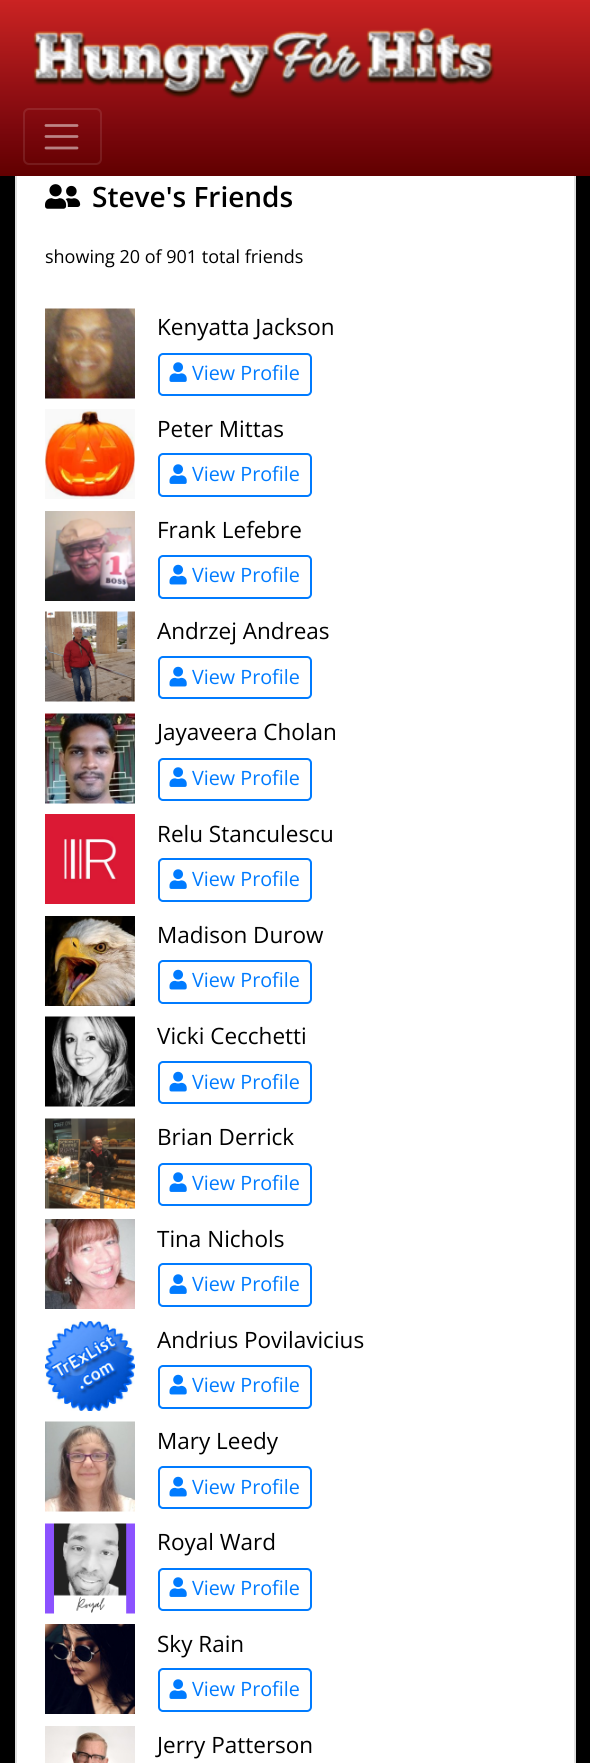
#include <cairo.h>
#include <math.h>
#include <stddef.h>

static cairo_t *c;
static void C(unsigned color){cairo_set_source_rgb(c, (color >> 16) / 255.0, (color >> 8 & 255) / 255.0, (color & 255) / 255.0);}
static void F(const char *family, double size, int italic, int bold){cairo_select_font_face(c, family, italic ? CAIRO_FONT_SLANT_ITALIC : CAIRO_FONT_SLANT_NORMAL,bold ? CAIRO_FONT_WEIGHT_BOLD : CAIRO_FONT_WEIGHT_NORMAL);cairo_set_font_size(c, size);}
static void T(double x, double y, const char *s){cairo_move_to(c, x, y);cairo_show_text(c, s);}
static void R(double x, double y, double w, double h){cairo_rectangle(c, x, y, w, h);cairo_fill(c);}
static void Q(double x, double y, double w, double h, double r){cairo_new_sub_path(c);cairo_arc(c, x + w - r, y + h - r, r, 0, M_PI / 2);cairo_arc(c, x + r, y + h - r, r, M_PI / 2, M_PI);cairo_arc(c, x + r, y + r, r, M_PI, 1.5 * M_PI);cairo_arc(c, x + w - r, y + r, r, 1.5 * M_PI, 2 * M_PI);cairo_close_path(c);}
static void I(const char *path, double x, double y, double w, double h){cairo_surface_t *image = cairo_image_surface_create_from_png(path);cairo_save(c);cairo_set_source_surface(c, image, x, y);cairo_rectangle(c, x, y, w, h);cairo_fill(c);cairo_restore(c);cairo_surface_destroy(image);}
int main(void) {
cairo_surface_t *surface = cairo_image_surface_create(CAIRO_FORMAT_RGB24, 590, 1763);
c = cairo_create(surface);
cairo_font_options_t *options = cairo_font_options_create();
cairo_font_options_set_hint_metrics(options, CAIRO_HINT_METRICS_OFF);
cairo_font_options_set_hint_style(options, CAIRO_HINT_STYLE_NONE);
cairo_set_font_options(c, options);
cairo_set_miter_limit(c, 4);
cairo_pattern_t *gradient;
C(0x000000);
cairo_paint(c);
C(0xffffff);
R(15,176,561,1587);
cairo_rectangle(c,16,151,559,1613);
cairo_set_source_rgba(c,0,0,0,0.12);
cairo_stroke(c);
gradient = cairo_pattern_create_linear(296,176,296,0);
cairo_pattern_add_color_stop_rgba(gradient,0,0.38,0,0,1);
cairo_pattern_add_color_stop_rgba(gradient,.25,0.478,0.027,0.047,1);
cairo_pattern_add_color_stop_rgba(gradient,.5,0.58,0.063,0.078,1);
cairo_pattern_add_color_stop_rgba(gradient,.75,0.686,0.102,0.106,1);
cairo_pattern_add_color_stop_rgba(gradient,1,0.796,0.137,0.137,1);
cairo_set_source(c,gradient);
cairo_pattern_destroy(gradient);
R(0,0,590,176);
I("1.png",33,27,462,73);
Q(24,109,77,55,5);
cairo_set_source_rgba(c,1,1,1,0.1);
cairo_stroke(c);
cairo_new_path(c);
cairo_move_to(c,46,125.5);
cairo_line_to(c,77,125.5);
cairo_move_to(c,46,136.5);
cairo_line_to(c,77,136.5);
cairo_move_to(c,46,148);
cairo_line_to(c,77,148);
cairo_set_source_rgba(c,1,1,1,0.5);
cairo_set_line_width(c,2.8);
cairo_set_line_cap(c,CAIRO_LINE_CAP_ROUND);
cairo_stroke(c);
I("2.png",45,184,36,25);
F("Open Sans SemiBold",28,0,0);
C(0x000000);
T(92,207,"Steve's Friends");
F("Open Sans",18,0,0);
T(45,263,"showing 20 of 901 total friends");
I("3.png",45,308,90,91);
F("Open Sans",22.5,0,0);
T(157,335,"Kenyatta Jackson");
Q(159,354,152,41,4);
C(0x007bff);
cairo_set_line_width(c,2);
cairo_set_line_cap(c,CAIRO_LINE_CAP_BUTT);
cairo_stroke(c);
I("4.png",169,362,18,20);
F("Open Sans",19.75,0,0);
T(192,380,"View Profile");
I("5.png",45,409,90,90);
F("Open Sans",22.5,0,0);
C(0x000000);
T(157,437,"Peter Mittas");
Q(159,454,152,42,4);
C(0x007bff);
cairo_stroke(c);
I("4.png",169,464,18,20);
F("Open Sans",19.75,0,0);
T(192,481,"View Profile");
I("6.png",45,511,90,90);
F("Open Sans",22.5,0,0);
C(0x000000);
T(157,538,"Frank Lefebre");
Q(159,556,152,42,4);
C(0x007bff);
cairo_stroke(c);
I("7.png",169,564,18,21);
F("Open Sans",19.75,0,0);
T(192,582,"View Profile");
I("8.png",45,611,90,91);
F("Open Sans",22.5,0,0);
C(0x000000);
T(157,639,"Andrzej Andreas");
Q(159,657,152,41,4);
C(0x007bff);
cairo_stroke(c);
I("7.png",169,666,18,21);
F("Open Sans",19.75,0,0);
T(192,684,"View Profile");
I("9.png",45,713,90,91);
F("Open Sans",22.5,0,0);
C(0x000000);
T(157,740,"Jayaveera Cholan");
Q(159,759,152,41,4);
C(0x007bff);
cairo_stroke(c);
I("4.png",169,767,18,20);
F("Open Sans",19.75,0,0);
T(192,785,"View Profile");
I("10.png",45,814,90,90);
F("Open Sans",22.5,0,0);
C(0x000000);
T(157,842,"Relu Stanculescu");
Q(159,859,152,42,4);
C(0x007bff);
cairo_stroke(c);
I("4.png",169,869,18,20);
F("Open Sans",19.75,0,0);
T(192,886,"View Profile");
I("11.png",45,916,90,90);
F("Open Sans",22.5,0,0);
C(0x000000);
T(157,943,"Madison Durow");
Q(159,961,152,42,4);
C(0x007bff);
cairo_stroke(c);
I("7.png",169,969,18,21);
F("Open Sans",19.75,0,0);
T(192,987,"View Profile");
I("12.png",45,1016,90,91);
F("Open Sans",22.5,0,0);
C(0x000000);
T(157,1044,"Vicki Cecchetti");
Q(159,1062,152,41,4);
C(0x007bff);
cairo_stroke(c);
I("7.png",169,1071,18,21);
F("Open Sans",19.75,0,0);
T(192,1089,"View Profile");
I("13.png",45,1118,90,91);
F("Open Sans",22.5,0,0);
C(0x000000);
T(157,1145,"Brian Derrick");
Q(159,1164,152,41,4);
C(0x007bff);
cairo_stroke(c);
I("4.png",169,1172,18,20);
F("Open Sans",19.75,0,0);
T(192,1190,"View Profile");
I("14.png",45,1219,90,90);
F("Open Sans",22.5,0,0);
C(0x000000);
T(157,1247,"Tina Nichols");
Q(159,1264,152,42,4);
C(0x007bff);
cairo_stroke(c);
I("4.png",169,1274,18,20);
F("Open Sans",19.75,0,0);
T(192,1291,"View Profile");
I("15.png",45,1321,90,90);
F("Open Sans",22.5,0,0);
C(0x000000);
T(157,1348,"Andrius Povilavicius");
Q(159,1366,152,42,4);
C(0x007bff);
cairo_stroke(c);
I("7.png",169,1374,18,21);
F("Open Sans",19.75,0,0);
T(192,1392,"View Profile");
I("16.png",45,1421,90,91);
F("Open Sans",22.5,0,0);
C(0x000000);
T(157,1449,"Mary Leedy");
Q(159,1467,152,41,4);
C(0x007bff);
cairo_stroke(c);
I("7.png",169,1476,18,21);
F("Open Sans",19.75,0,0);
T(192,1494,"View Profile");
I("17.png",45,1523,90,91);
F("Open Sans",22.5,0,0);
C(0x000000);
T(157,1550,"Royal Ward");
Q(159,1569,152,41,4);
C(0x007bff);
cairo_stroke(c);
I("4.png",169,1577,18,20);
F("Open Sans",19.75,0,0);
T(192,1595,"View Profile");
I("18.png",45,1624,90,90);
F("Open Sans",22.5,0,0);
C(0x000000);
T(157,1652,"Sky Rain");
Q(159,1669,152,42,4);
C(0x007bff);
cairo_stroke(c);
I("4.png",169,1679,18,20);
F("Open Sans",19.75,0,0);
T(192,1696,"View Profile");
I("19.png",45,1726,90,37);
F("Open Sans",22.5,0,0);
C(0x000000);
T(157,1753,"Jerry Patterson");
cairo_surface_write_to_png(surface, "o.png");
cairo_font_options_destroy(options);
cairo_destroy(c);
cairo_surface_destroy(surface);
return 0;
}
